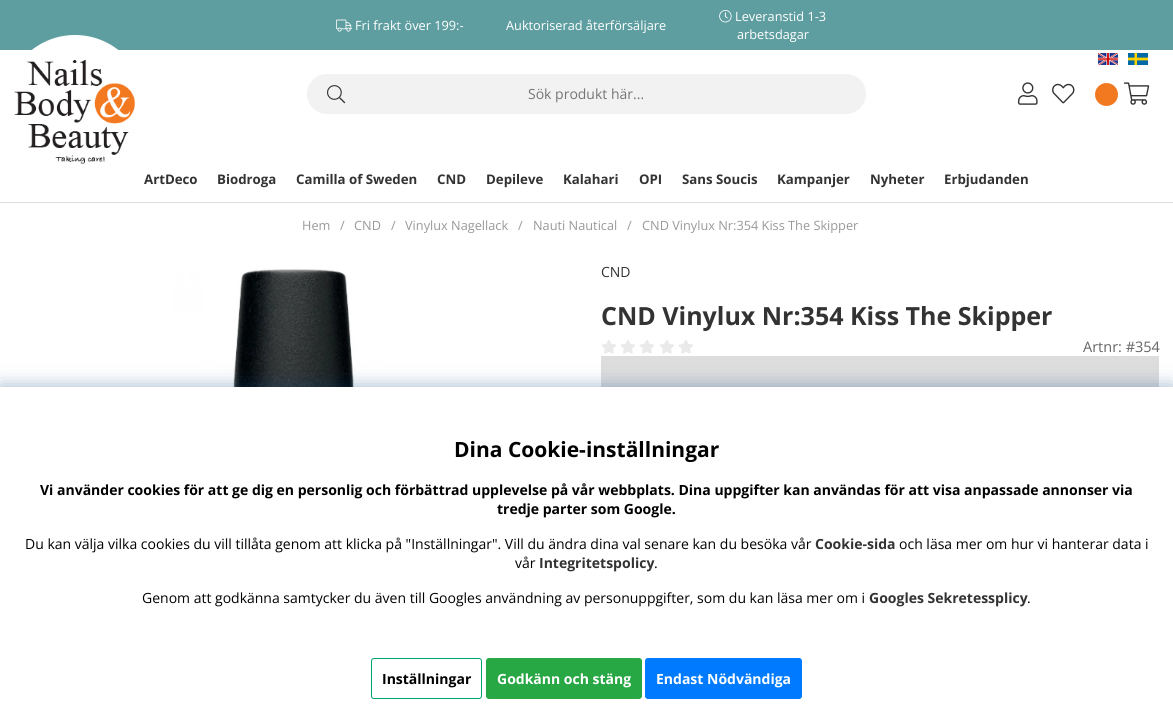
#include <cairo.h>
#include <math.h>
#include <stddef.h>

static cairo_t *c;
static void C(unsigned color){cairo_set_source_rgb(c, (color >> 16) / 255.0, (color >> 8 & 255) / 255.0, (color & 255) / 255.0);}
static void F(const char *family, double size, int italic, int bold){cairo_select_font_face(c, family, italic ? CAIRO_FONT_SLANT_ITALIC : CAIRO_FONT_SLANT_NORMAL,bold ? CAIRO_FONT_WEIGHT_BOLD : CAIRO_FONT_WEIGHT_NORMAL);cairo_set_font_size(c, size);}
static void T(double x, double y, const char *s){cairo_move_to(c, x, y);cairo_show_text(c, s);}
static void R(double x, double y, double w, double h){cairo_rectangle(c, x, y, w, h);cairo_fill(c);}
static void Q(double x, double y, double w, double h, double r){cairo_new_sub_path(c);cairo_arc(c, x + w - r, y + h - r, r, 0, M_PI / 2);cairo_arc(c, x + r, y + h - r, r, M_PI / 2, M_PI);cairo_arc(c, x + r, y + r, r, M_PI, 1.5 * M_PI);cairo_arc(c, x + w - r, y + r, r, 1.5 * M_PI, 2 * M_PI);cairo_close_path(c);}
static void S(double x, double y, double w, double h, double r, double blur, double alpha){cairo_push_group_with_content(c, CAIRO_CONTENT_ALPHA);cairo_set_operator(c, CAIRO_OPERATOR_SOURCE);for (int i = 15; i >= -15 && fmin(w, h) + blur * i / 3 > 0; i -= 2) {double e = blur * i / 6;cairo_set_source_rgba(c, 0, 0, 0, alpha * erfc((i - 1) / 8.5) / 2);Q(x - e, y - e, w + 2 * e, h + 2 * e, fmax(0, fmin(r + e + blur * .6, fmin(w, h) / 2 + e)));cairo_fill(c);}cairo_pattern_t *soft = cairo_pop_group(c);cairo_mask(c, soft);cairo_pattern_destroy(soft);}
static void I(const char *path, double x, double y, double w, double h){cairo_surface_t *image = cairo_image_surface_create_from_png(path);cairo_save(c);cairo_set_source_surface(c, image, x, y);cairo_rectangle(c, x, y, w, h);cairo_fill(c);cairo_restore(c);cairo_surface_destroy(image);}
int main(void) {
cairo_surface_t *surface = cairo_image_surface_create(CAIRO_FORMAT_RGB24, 1173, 719);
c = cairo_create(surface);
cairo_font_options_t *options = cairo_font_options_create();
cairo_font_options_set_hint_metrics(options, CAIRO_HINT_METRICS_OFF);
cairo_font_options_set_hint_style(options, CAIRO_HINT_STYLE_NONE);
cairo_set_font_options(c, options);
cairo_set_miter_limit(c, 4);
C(0xffffff);
cairo_paint(c);
C(0x5f9ea0);
R(0,0,1173,50);
I("1.png",336,19,16,13);
F("Open Sans",12.75,0,0);
C(0xffffff);
T(355,30,"Fri frakt över 199:-");
T(506,30,"Auktoriserad återförsäljare");
I("2.png",719,10,13,13);
T(735,21,"Leveranstid 1-3");
T(737,39,"arbetsdagar");
I("3.png",1098,53,20,12);
I("4.png",1128,53,20,12);
F("Open Sans",13.25,0,1);
C(0x333333);
T(144,184,"ArtDeco");
C(0xffffff);
cairo_new_path(c);
cairo_arc(c,75,105,70,0,2 * M_PI);
cairo_fill(c);
I("5.png",14,60,122,104);
C(0xf2f2f2);
Q(307,74,559,40,20);
cairo_fill(c);
I("6.png",327,85,19,19);
F("Open Sans",14,0,0);
C(0x757575);
T(528,99,"Sök produkt här...");
I("7.png",1018,82,20,23);
I("8.png",1052,83,23,21);
C(0xf37920);
cairo_arc(c,1106.5,94.5,11.5,0,2 * M_PI);
cairo_fill(c);
I("9.png",1124,82,26,23);
C(0xdddddd);
R(0,202,1173,1);
F("Open Sans",13.25,0,1);
C(0x333333);
T(217,184,"Biodroga");
T(296,184,"Camilla of Sweden");
T(437,184,"CND");
T(486,184,"Depileve");
T(563,184,"Kalahari");
T(639,184,"OPI");
T(682,184,"Sans Soucis");
T(777,184,"Kampanjer");
T(870,184,"Nyheter");
T(944,184,"Erbjudanden");
F("Open Sans",12.75,0,0);
C(0x999999);
T(302,230,"Hem");
T(340,230,"/");
T(354,230,"CND");
T(391,230,"/");
T(405,230,"Vinylux Nagellack");
T(518,230,"/");
T(533,230,"Nauti Nautical");
T(627,230,"/");
T(642,230,"CND Vinylux Nr:354 Kiss The Skipper");
I("10.png",174,269,237,118);
F("Open Sans",14,0,0);
C(0x333333);
T(601,277,"CND");
F("Open Sans",25,0,1);
T(601,325,"CND Vinylux Nr:354 Kiss The Skipper");
I("11.png",601,340,15,14);
I("11.png",620,340,15,14);
I("11.png",639,340,15,14);
I("11.png",659,340,15,14);
I("11.png",678,340,15,14);
F("Open Sans",14.5,0,0);
C(0x666666);
T(1083,352,"Artnr: #354");
C(0xdddddd);
R(601,356,558,31);
C(0x00427a);
S(0,388,1173,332,0,10,.44);
C(0xffffff);
R(0,387,1173,332);
F("Open Sans",21,0,1);
C(0x000000);
T(454,457,"Dina Cookie-inställningar");
F("Open Sans",14,0,1);
T(40,495,"Vi använder cookies för att ge dig en personlig och förbättrad upplevelse på vår webbplats. Dina uppgifter kan användas för att visa anpassade annonser via");
T(497,514,"tredje parter som Google.");
F("Open Sans",14,0,0);
T(25,549,"Du kan välja vilka cookies du vill tillåta genom att klicka på \"Inställningar\". Vill du ändra dina val senare kan du besöka vår");
F("Open Sans",14,0,1);
C(0x333333);
T(815,549,"Cookie-sida");
F("Open Sans",14,0,0);
C(0x000000);
T(899,549,"och läsa mer om hur vi hanterar data i");
T(515,568,"vår");
F("Open Sans",14,0,1);
C(0x333333);
T(539,568,"Integritetspolicy");
F("Open Sans",14,0,0);
C(0x000000);
T(654,568,".");
T(142,603,"Genom att godkänna samtycker du även till Googles användning av personuppgifter, som du kan läsa mer om i");
F("Open Sans",14,0,1);
C(0x333333);
T(869,603,"Googles Sekretessplicy");
F("Open Sans",14,0,0);
C(0x000000);
T(1027,603,".");
Q(371.5,658.5,110,40,2.5);
C(0x00a36c);
cairo_set_line_width(c,1);
cairo_stroke(c);
F("Open Sans",14,0,1);
C(0x000000);
T(382,684,"Inställningar");
C(0x28a745);
Q(486.5,658.5,155,40,2.5);
cairo_fill_preserve(c);
cairo_stroke(c);
C(0xffffff);
T(497,684,"Godkänn och stäng");
C(0x007bff);
Q(645.5,658.5,156,40,2.5);
cairo_fill_preserve(c);
cairo_stroke(c);
C(0xffffff);
T(656,684,"Endast Nödvändiga");
cairo_surface_write_to_png(surface, "o.png");
cairo_font_options_destroy(options);
cairo_destroy(c);
cairo_surface_destroy(surface);
return 0;
}
